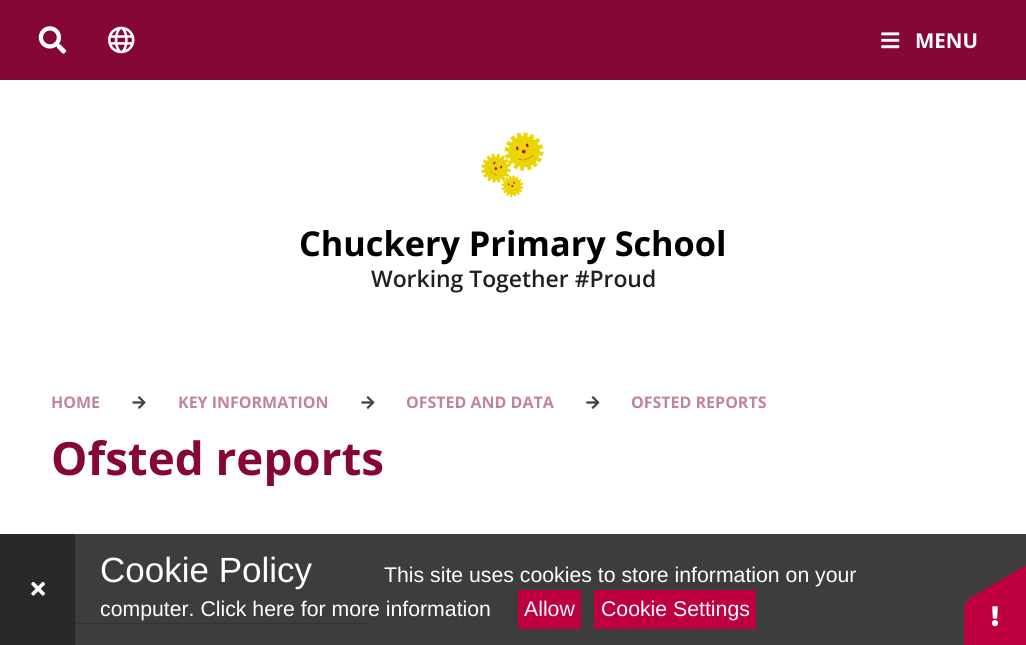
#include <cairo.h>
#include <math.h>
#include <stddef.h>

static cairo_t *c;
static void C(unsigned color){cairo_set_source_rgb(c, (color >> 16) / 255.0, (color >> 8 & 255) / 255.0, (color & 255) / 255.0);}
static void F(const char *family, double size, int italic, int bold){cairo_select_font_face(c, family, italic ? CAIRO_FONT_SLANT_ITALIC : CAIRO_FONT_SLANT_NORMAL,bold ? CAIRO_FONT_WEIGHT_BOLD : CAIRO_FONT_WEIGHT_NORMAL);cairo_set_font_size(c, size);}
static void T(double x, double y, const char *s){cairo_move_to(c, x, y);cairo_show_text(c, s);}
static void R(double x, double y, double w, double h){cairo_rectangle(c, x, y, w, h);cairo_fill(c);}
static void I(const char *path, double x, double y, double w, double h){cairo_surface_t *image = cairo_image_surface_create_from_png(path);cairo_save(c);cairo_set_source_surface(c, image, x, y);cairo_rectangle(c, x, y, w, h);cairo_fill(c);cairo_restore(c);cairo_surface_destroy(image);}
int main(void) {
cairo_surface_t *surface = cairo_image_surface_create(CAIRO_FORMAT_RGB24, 1026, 645);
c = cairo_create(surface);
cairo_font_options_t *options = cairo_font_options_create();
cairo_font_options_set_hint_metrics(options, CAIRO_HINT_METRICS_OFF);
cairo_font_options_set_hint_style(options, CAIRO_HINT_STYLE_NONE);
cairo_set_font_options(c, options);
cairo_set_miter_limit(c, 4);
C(0xffffff);
cairo_paint(c);
C(0x3d3d3d);
R(75,534,951,111);
C(0x850737);
R(0,0,1026,80);
I("1.png",38,26,29,28);
I("2.png",107,26,28,28);
I("3.png",881,32,19,17);
F("Open Sans",20.5,0,1);
C(0xffffff);
T(915,48,"MENU");
I("4.png",481,132,63,66);
F("Open Sans",34.25,0,1);
C(0x000000);
T(299,256,"Chuckery Primary School");
F("Open Sans SemiBold",22.9,0,0);
C(0x202020);
T(371,287,"Working Together #Proud");
F("Open Sans",16,0,1);
C(0xc2839b);
T(51,408,"HOME");
I("5.png",132,396,14,13);
T(178,408,"KEY INFORMATION");
I("6.png",361,396,14,13);
T(406,408,"OFSTED AND DATA");
I("6.png",586,396,14,13);
T(631,408,"OFSTED REPORTS");
F("Open Sans",45.75,0,1);
C(0x850737);
T(51,475,"Ofsted reports");
C(0x373133);
R(75,623,293,1);
C(0x292929);
R(0,534,75,111);
I("7.png",31,581,14,15);
F("Liberation Sans",35,0,0);
C(0xffffff);
T(100,582,"Cookie Policy");
F("Liberation Sans",21.25,0,0);
T(384,582,"This site uses cookies to store information on your");
T(100,616,"computer. Click here for more information");
C(0xbe003f);
R(518,590,63,39);
C(0xffffff);
T(524,616,"Allow");
C(0xbe003f);
R(594,590,162,39);
C(0xffffff);
T(601,616,"Cookie Settings");
C(0xbe003f);
cairo_new_path(c);
cairo_move_to(c,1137,611);
cairo_line_to(c,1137,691);
cairo_curve_to(c,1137,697,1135,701,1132,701);
cairo_line_to(c,969,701);
cairo_curve_to(c,966,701,964,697,964,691);
cairo_line_to(c,964,611);
cairo_curve_to(c,964,606,966,601,969,601);
cairo_line_to(c,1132,601);
cairo_curve_to(c,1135,601,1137,606,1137,611);
cairo_close_path(c);
cairo_fill(c);
cairo_new_path(c);
cairo_move_to(c,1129,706);
cairo_line_to(c,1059,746);
cairo_curve_to(c,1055,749,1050,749,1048,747);
cairo_line_to(c,967,605);
cairo_curve_to(c,965,603,968,599,973,596);
cairo_line_to(c,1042,556);
cairo_curve_to(c,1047,553,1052,553,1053,555);
cairo_line_to(c,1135,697);
cairo_curve_to(c,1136,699,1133,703,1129,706);
cairo_close_path(c);
cairo_fill(c);
I("8.png",991,606,8,21);
cairo_surface_write_to_png(surface, "o.png");
cairo_font_options_destroy(options);
cairo_destroy(c);
cairo_surface_destroy(surface);
return 0;
}
